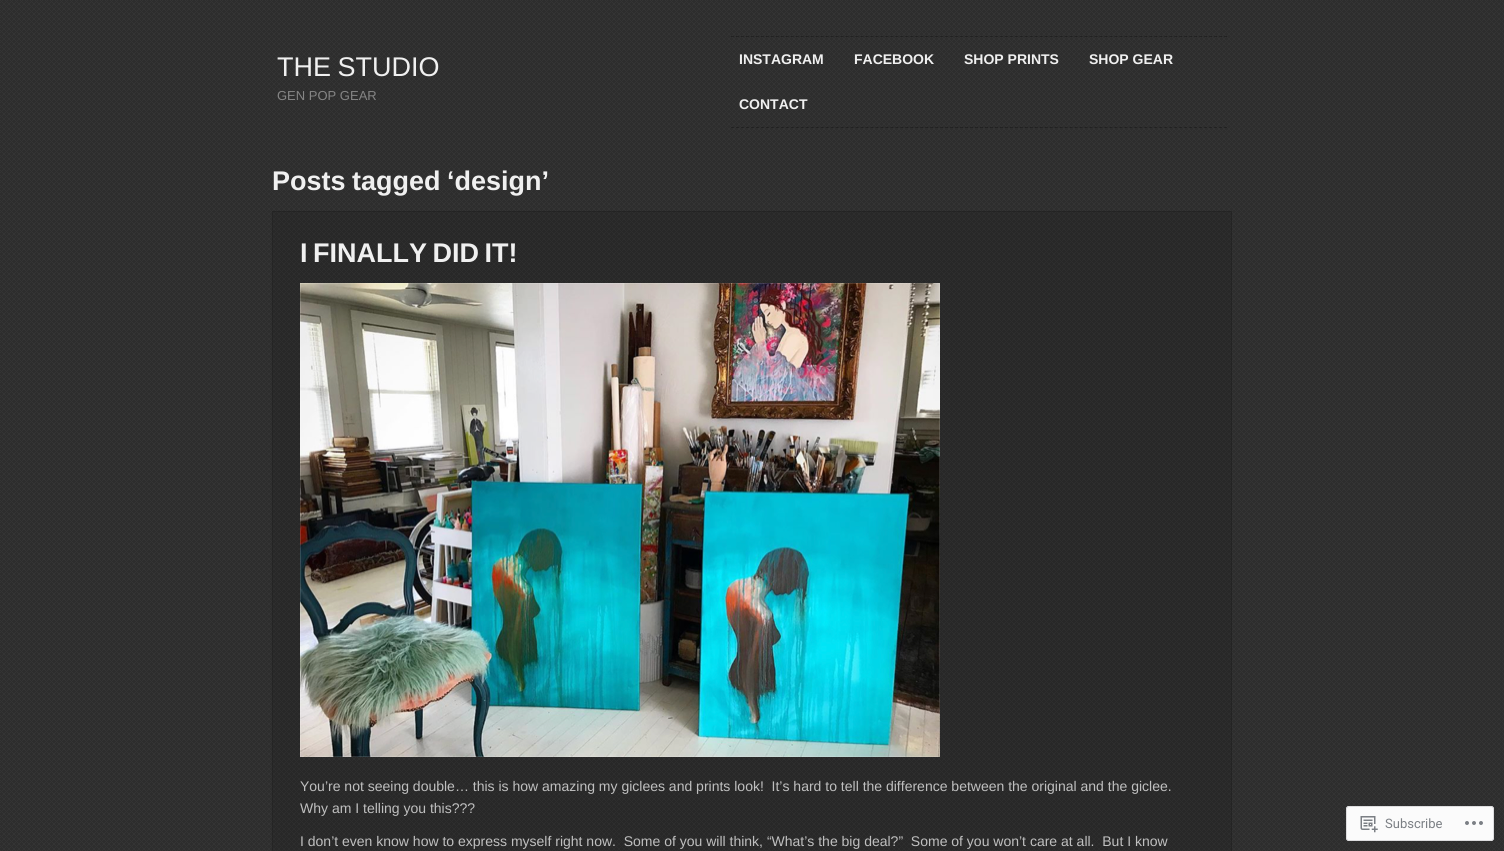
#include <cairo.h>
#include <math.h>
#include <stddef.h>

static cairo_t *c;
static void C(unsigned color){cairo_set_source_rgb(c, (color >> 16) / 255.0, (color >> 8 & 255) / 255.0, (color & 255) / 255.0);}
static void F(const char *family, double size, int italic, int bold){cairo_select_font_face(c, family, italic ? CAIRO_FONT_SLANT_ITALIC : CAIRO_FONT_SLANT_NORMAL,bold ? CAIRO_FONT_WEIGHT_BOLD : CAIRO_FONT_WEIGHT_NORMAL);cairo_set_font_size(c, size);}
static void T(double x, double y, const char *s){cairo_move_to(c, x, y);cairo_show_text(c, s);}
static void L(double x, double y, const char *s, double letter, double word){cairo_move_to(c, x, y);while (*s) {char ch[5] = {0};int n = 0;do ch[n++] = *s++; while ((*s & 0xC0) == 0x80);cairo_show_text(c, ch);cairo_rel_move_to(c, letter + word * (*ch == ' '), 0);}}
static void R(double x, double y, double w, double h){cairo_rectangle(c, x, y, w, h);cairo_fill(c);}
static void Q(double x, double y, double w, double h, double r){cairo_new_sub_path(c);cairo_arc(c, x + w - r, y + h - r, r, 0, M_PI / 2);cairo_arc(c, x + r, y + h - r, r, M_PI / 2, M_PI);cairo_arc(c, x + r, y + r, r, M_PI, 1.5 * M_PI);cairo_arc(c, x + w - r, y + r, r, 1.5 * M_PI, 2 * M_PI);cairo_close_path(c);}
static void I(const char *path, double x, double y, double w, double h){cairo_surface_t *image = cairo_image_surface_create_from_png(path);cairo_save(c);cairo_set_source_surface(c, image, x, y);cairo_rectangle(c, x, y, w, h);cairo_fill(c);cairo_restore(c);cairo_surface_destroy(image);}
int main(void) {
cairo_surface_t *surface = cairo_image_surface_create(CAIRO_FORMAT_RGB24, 1504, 851);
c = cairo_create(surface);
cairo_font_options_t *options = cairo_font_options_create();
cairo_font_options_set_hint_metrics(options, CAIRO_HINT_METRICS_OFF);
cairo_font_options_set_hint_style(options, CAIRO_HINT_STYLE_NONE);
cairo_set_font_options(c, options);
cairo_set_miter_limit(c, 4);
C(0x2d2d2d);
cairo_paint(c);
I("1.png",0,0,1504,851);
F("Liberation Sans",27,0,0);
C(0xf0f0f0);
L(277,76,"THE STUDIO",0,-1);
F("Liberation Sans",13,0,0);
C(0x858585);
T(277,100,"GEN POP GEAR");
cairo_new_path(c);
cairo_move_to(c,731,36.5);
cairo_line_to(c,1227,36.5);
C(0x222222);
cairo_set_line_width(c,1);
cairo_set_dash(c,(double[]){3,1.98},2,0);
cairo_stroke(c);
cairo_new_path(c);
cairo_move_to(c,731,127.5);
cairo_line_to(c,1227,127.5);
cairo_stroke(c);
F("Arimo",14,0,1);
C(0xf0f0f0);
T(739,64,"INSTAGRAM");
T(854,64,"FACEBOOK");
T(964,64,"SHOP PRINTS");
T(1089,64,"SHOP GEAR");
T(739,109,"CONTACT");
F("Liberation Sans",27,0,1);
L(272,190,"Posts tagged ‘design’",0,-1);
cairo_set_source_rgba(c,0,0,0,0.12);
R(272,211,960,640);
cairo_rectangle(c,272.5,211.5,959,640);
cairo_set_source_rgba(c,0,0,0,0.14);
cairo_set_dash(c,NULL,0,0);
cairo_stroke(c);
C(0xf0f0f0);
L(300,262,"I FINALLY DID IT!",0,-2);
I("2.png",300,283,640,474);
cairo_rectangle(c,300.5,283.5,639,473);
cairo_set_source_rgba(c,1,1,1,0.14);
cairo_stroke(c);
F("Arimo",14,0,0);
C(0xbfbfbf);
T(300,791,"You’re not seeing double… this is how amazing my giclees and prints look!  It’s hard to tell the difference between the original and the giclee.");
T(300,813,"Why am I telling you this?\077?");
T(300,846,"I don’t even know how to express myself right now.  Some of you will think, “What’s the big deal?”  Some of you won’t care at all.  But I know");
cairo_set_source_rgba(c,1,1,1,0.98);
Q(1346,806,148,35,3);
cairo_fill(c);
Q(1346.5,806.5,147,34,2.5);
cairo_set_source_rgba(c,0.863,0.863,0.871,0.98);
cairo_stroke(c);
I("3.png",1360,816,18,17);
F("Roboto",13,0,0);
C(0x7b7f84);
T(1385,828,"Subscribe");
I("4.png",1465,821,18,4);
cairo_surface_write_to_png(surface, "o.png");
cairo_font_options_destroy(options);
cairo_destroy(c);
cairo_surface_destroy(surface);
return 0;
}
